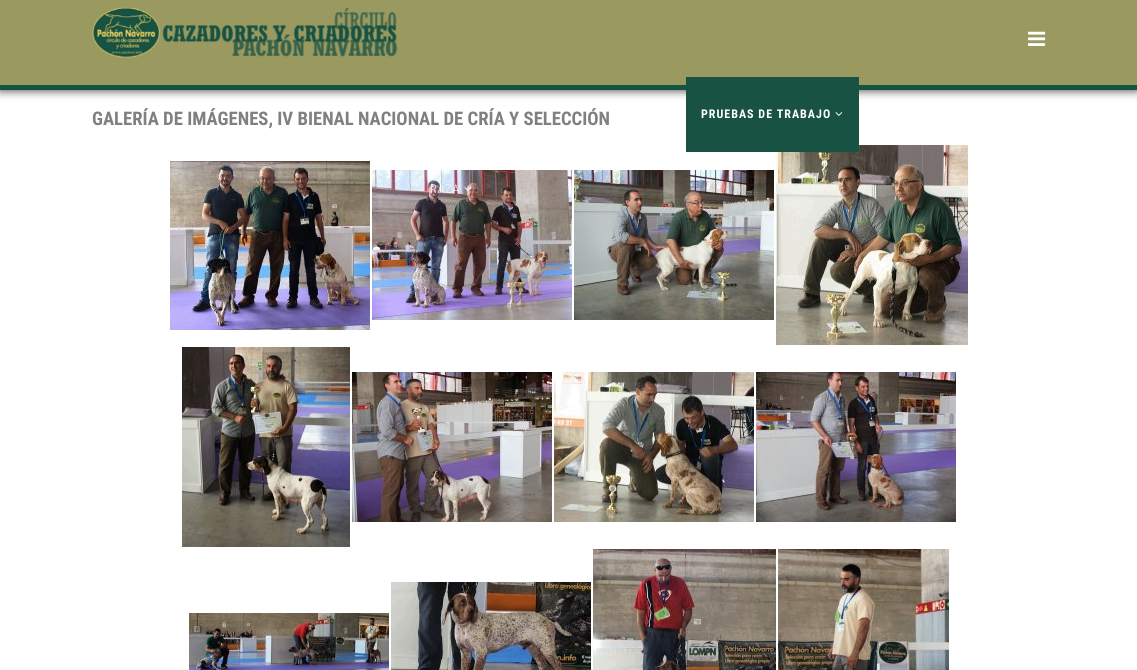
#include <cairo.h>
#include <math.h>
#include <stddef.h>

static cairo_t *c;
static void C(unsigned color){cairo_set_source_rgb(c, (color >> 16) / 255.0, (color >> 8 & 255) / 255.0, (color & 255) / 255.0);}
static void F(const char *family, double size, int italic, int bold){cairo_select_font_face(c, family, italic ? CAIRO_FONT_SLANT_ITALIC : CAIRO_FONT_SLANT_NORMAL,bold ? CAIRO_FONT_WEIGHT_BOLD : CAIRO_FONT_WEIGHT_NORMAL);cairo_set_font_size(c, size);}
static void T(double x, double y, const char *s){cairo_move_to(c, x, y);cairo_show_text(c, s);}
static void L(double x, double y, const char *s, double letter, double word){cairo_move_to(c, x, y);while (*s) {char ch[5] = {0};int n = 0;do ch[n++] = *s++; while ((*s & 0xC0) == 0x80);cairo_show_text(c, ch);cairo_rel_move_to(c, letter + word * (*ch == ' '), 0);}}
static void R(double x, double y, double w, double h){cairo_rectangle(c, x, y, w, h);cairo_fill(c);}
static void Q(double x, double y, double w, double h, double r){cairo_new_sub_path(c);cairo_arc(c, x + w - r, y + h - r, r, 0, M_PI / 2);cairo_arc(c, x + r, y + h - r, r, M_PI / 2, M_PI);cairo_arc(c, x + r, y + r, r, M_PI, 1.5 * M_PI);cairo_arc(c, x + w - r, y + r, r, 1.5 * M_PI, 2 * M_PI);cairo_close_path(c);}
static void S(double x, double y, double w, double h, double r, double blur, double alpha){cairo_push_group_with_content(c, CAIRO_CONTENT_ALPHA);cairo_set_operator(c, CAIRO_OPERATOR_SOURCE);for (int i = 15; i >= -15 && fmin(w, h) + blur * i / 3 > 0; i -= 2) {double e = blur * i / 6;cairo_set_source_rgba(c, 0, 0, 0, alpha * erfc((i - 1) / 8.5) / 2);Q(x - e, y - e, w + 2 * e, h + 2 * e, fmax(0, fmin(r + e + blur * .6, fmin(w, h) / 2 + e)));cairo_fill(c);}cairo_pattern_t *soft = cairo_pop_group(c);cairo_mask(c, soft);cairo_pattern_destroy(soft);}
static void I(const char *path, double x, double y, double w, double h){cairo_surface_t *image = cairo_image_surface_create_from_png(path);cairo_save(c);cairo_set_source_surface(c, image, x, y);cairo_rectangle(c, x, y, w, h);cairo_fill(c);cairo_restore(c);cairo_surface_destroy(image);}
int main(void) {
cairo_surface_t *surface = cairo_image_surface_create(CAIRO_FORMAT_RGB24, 1137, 670);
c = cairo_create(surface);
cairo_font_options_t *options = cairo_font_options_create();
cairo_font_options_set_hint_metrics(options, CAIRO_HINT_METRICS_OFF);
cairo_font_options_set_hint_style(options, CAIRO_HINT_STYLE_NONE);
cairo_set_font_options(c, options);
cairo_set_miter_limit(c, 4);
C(0xffffff);
cairo_paint(c);
F("Roboto Condensed",18.7,0,1);
C(0x808080);
T(92,125,"GALERÍA DE IMÁGENES, IV BIENAL NACIONAL DE CRÍA Y SELECCIÓN");
I("1.png",170,161,200,169);
I("2.png",372,170,200,150);
I("3.png",574,170,200,150);
I("4.png",776,145,192,200);
I("5.png",182,347,168,200);
I("6.png",352,372,200,150);
I("7.png",554,372,200,150);
I("8.png",756,372,200,150);
I("9.png",189,613,200,57);
I("10.png",391,582,200,88);
I("11.png",593,549,183,121);
I("12.png",778,549,171,121);
C(0x000000);
S(0,0,1137,90,0,5,.8);
C(0x999960);
R(0,0,1137,85);
C(0x185243);
R(0,85,1137,5);
I("13.png",92,7,306,51);
I("14.png",1028,31,18,15);
R(686,77,173,75);
F("Roboto Condensed",12,0,1);
C(0xffffff);
L(701,118,"PRUEBAS DE TRABAJO",1,0);
I("15.png",835,112,8,4);
F("Roboto Condensed Light",12,0,0);
L(430,193,"RAZA",1,0);
I("16.png",464,187,8,4);
cairo_surface_write_to_png(surface, "o.png");
cairo_font_options_destroy(options);
cairo_destroy(c);
cairo_surface_destroy(surface);
return 0;
}
